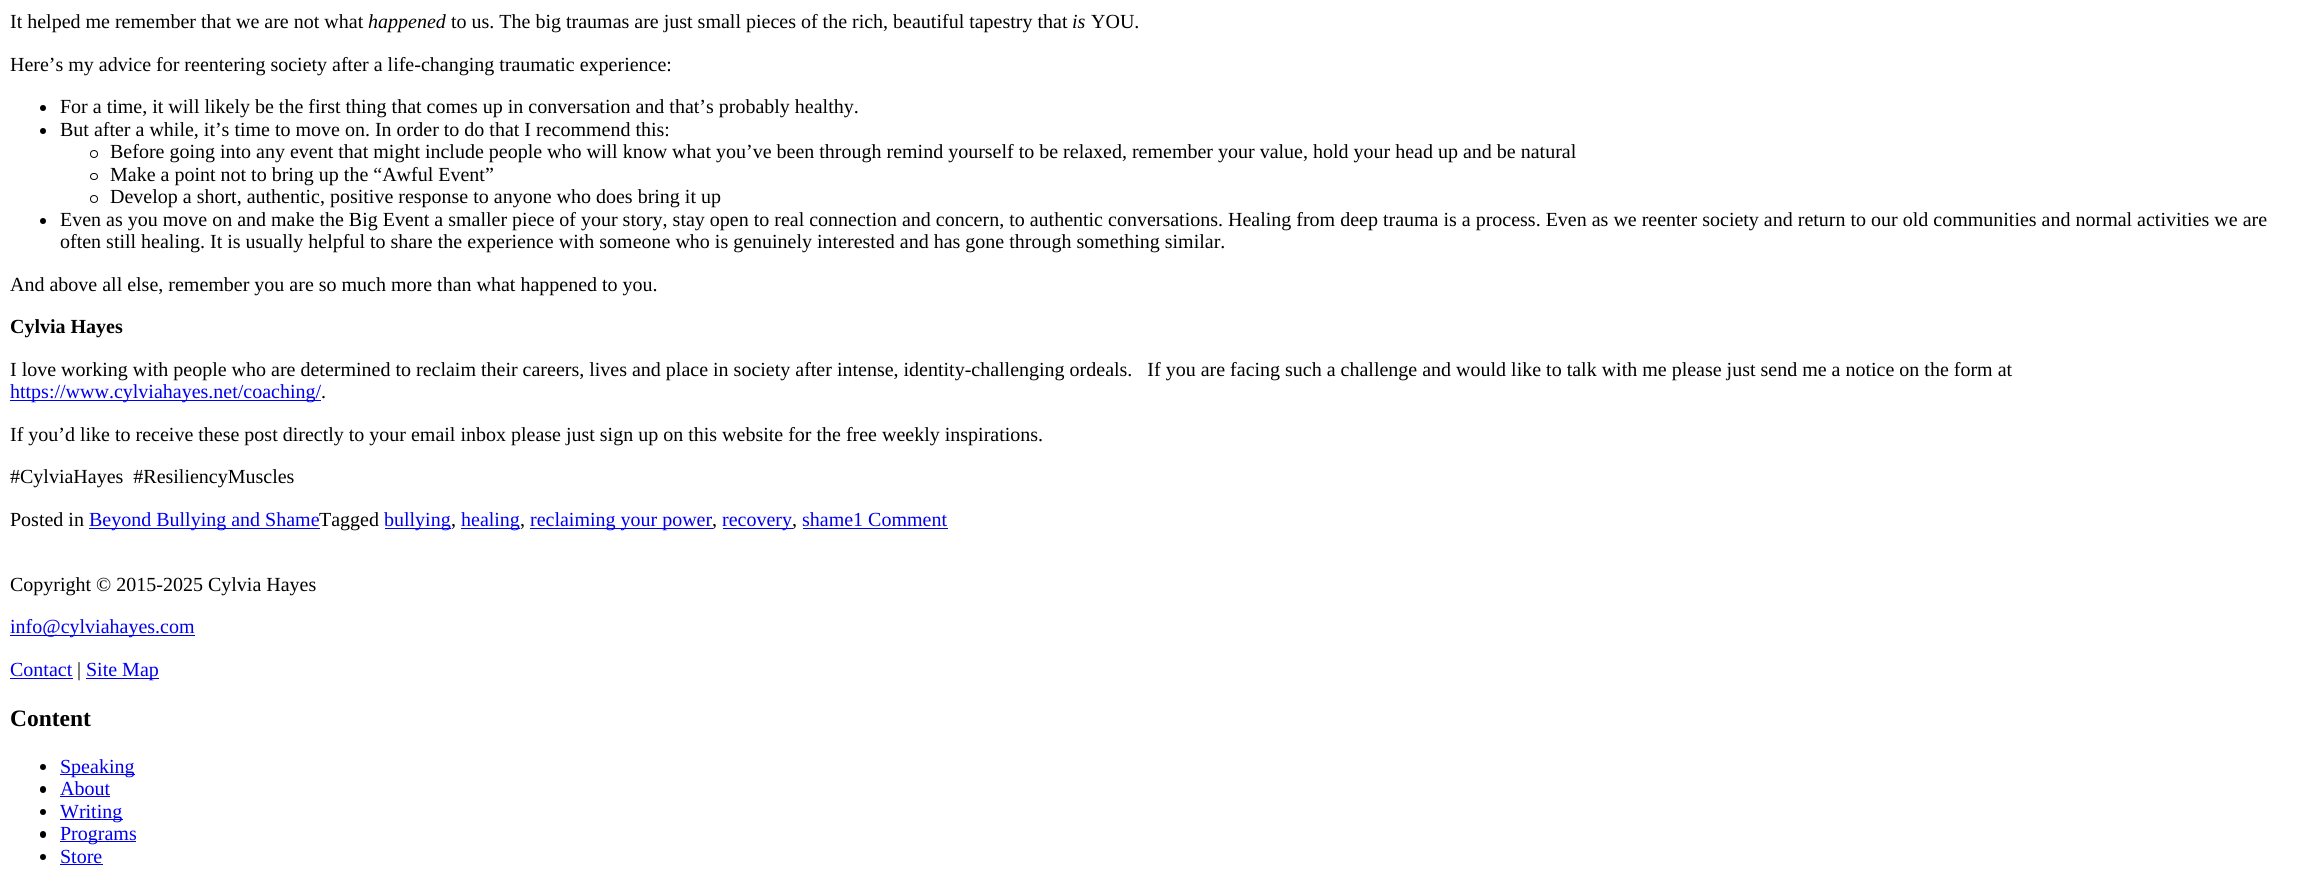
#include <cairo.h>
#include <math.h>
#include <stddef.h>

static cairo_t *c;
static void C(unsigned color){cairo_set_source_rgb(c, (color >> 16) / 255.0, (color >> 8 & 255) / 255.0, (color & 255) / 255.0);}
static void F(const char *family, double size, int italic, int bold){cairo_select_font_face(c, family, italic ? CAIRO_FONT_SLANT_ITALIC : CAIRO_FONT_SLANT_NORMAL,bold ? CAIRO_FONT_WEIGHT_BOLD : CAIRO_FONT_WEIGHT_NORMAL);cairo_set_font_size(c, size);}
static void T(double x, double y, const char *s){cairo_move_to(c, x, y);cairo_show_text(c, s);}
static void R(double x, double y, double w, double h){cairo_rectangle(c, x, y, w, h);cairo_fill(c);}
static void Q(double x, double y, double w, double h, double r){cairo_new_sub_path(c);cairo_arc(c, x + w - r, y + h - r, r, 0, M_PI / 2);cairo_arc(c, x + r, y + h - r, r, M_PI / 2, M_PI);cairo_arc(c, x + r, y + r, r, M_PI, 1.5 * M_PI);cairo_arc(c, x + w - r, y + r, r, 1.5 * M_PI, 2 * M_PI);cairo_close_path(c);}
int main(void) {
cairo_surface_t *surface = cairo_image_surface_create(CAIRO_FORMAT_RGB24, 2311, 887);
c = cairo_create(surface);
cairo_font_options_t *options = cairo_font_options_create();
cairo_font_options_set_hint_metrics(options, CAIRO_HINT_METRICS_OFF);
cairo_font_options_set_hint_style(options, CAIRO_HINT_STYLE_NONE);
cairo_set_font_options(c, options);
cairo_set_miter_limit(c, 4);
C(0xffffff);
cairo_paint(c);
F("Liberation Serif",20,0,0);
C(0x000000);
T(10,28,"It helped me remember that we are not what");
F("Liberation Serif",20,1,0);
T(368,28,"happened");
F("Liberation Serif",20,0,0);
T(451,28,"to us. The big traumas are just small pieces of the rich, beautiful tapestry that");
F("Liberation Serif",20,1,0);
T(1072,28,"is");
F("Liberation Serif",20,0,0);
T(1091,28,"YOU.");
T(10,71,"Here’s my advice for reentering society after a life-changing traumatic experience:");
cairo_new_path(c);
cairo_arc(c,43,108,3,0,2 * M_PI);
cairo_fill(c);
T(60,113,"For a time, it will likely be the first thing that comes up in conversation and that’s probably healthy.");
cairo_new_path(c);
cairo_arc(c,43,131,3,0,2 * M_PI);
cairo_fill(c);
T(60,136,"But after a while, it’s time to move on. In order to do that I recommend this:");
cairo_new_path(c);
cairo_arc(c,94,154,3.5,0,2 * M_PI);
cairo_set_line_width(c,1);
cairo_stroke(c);
T(110,158,"Before going into any event that might include people who will know what you’ve been through remind yourself to be relaxed, remember your value, hold your head up and be natural");
Q(90.5,173.5,7,6,3);
cairo_stroke(c);
T(110,181,"Make a point not to bring up the “Awful Event”");
cairo_new_path(c);
cairo_arc(c,94,199,3.5,0,2 * M_PI);
cairo_stroke(c);
T(110,203,"Develop a short, authentic, positive response to anyone who does bring it up");
cairo_new_path(c);
cairo_arc(c,43,221,3,0,2 * M_PI);
cairo_fill(c);
T(60,226,"Even as you move on and make the Big Event a smaller piece of your story, stay open to real connection and concern, to authentic conversations. Healing from deep trauma is a process. Even as we reenter society and return to our old communities and normal activities we are");
T(60,248,"often still healing. It is usually helpful to share the experience with someone who is genuinely interested and has gone through something similar.");
T(10,291,"And above all else, remember you are so much more than what happened to you.");
F("Liberation Serif",20,0,1);
T(10,333,"Cylvia Hayes");
F("Liberation Serif",20,0,0);
T(10,376,"I love working with people who are determined to reclaim their careers, lives and place in society after intense, identity-challenging ordeals.   If you are facing such a challenge and would like to talk with me please just send me a notice on the form at");
C(0x0000ee);
R(10,400,311,1);
T(10,398,"https://www.cylviahayes.net/coaching/");
C(0x000000);
T(321,398,".");
T(10,441,"If you’d like to receive these post directly to your email inbox please just sign up on this website for the free weekly inspirations.");
T(10,483,"#CylviaHayes  #ResiliencyMuscles");
T(10,526,"Posted in");
C(0x0000ee);
R(89,528,231,1);
T(89,526,"Beyond Bullying and Shame");
C(0x000000);
T(319,526,"Tagged");
C(0x0000ee);
R(385,528,66,1);
T(384,526,"bullying");
C(0x000000);
T(451,526,",");
C(0x0000ee);
R(461,528,59,1);
T(461,526,"healing");
C(0x000000);
T(520,526,",");
C(0x0000ee);
R(530,528,183,1);
T(530,526,"reclaiming your power");
C(0x000000);
T(712,526,",");
C(0x0000ee);
R(723,528,70,1);
T(722,526,"recovery");
C(0x000000);
T(792,526,",");
C(0x0000ee);
R(803,528,145,1);
T(802,526,"shame1 Comment");
C(0x000000);
T(10,591,"Copyright © 2015-2025 Cylvia Hayes");
C(0x0000ee);
R(10,635,185,1);
T(10,633,"info@cylviahayes.com");
T(10,676,"Contact");
R(10,678,63,1);
C(0x000000);
T(77,676,"|");
C(0x0000ee);
R(86,678,73,1);
T(86,676,"Site Map");
F("Liberation Serif",23.5,0,1);
C(0x000000);
T(10,726,"Content");
cairo_new_path(c);
cairo_arc(c,43,767,3,0,2 * M_PI);
cairo_fill(c);
C(0x0000ee);
R(60,774,75,1);
F("Liberation Serif",20,0,0);
T(60,773,"Speaking");
C(0x000000);
Q(40,786,6,7,3);
cairo_fill(c);
C(0x0000ee);
T(60,795,"About");
R(60,796,50,1);
C(0x000000);
cairo_new_path(c);
cairo_arc(c,43,812,3,0,2 * M_PI);
cairo_fill(c);
C(0x0000ee);
R(60,819,63,1);
T(60,818,"Writing");
C(0x000000);
Q(40,831,6,7,3);
cairo_fill(c);
C(0x0000ee);
R(60,841,76,1);
T(60,840,"Programs");
C(0x000000);
cairo_new_path(c);
cairo_arc(c,43,857,3,0,2 * M_PI);
cairo_fill(c);
C(0x0000ee);
T(60,863,"Store");
R(60,864,43,1);
cairo_surface_write_to_png(surface, "o.png");
cairo_font_options_destroy(options);
cairo_destroy(c);
cairo_surface_destroy(surface);
return 0;
}
